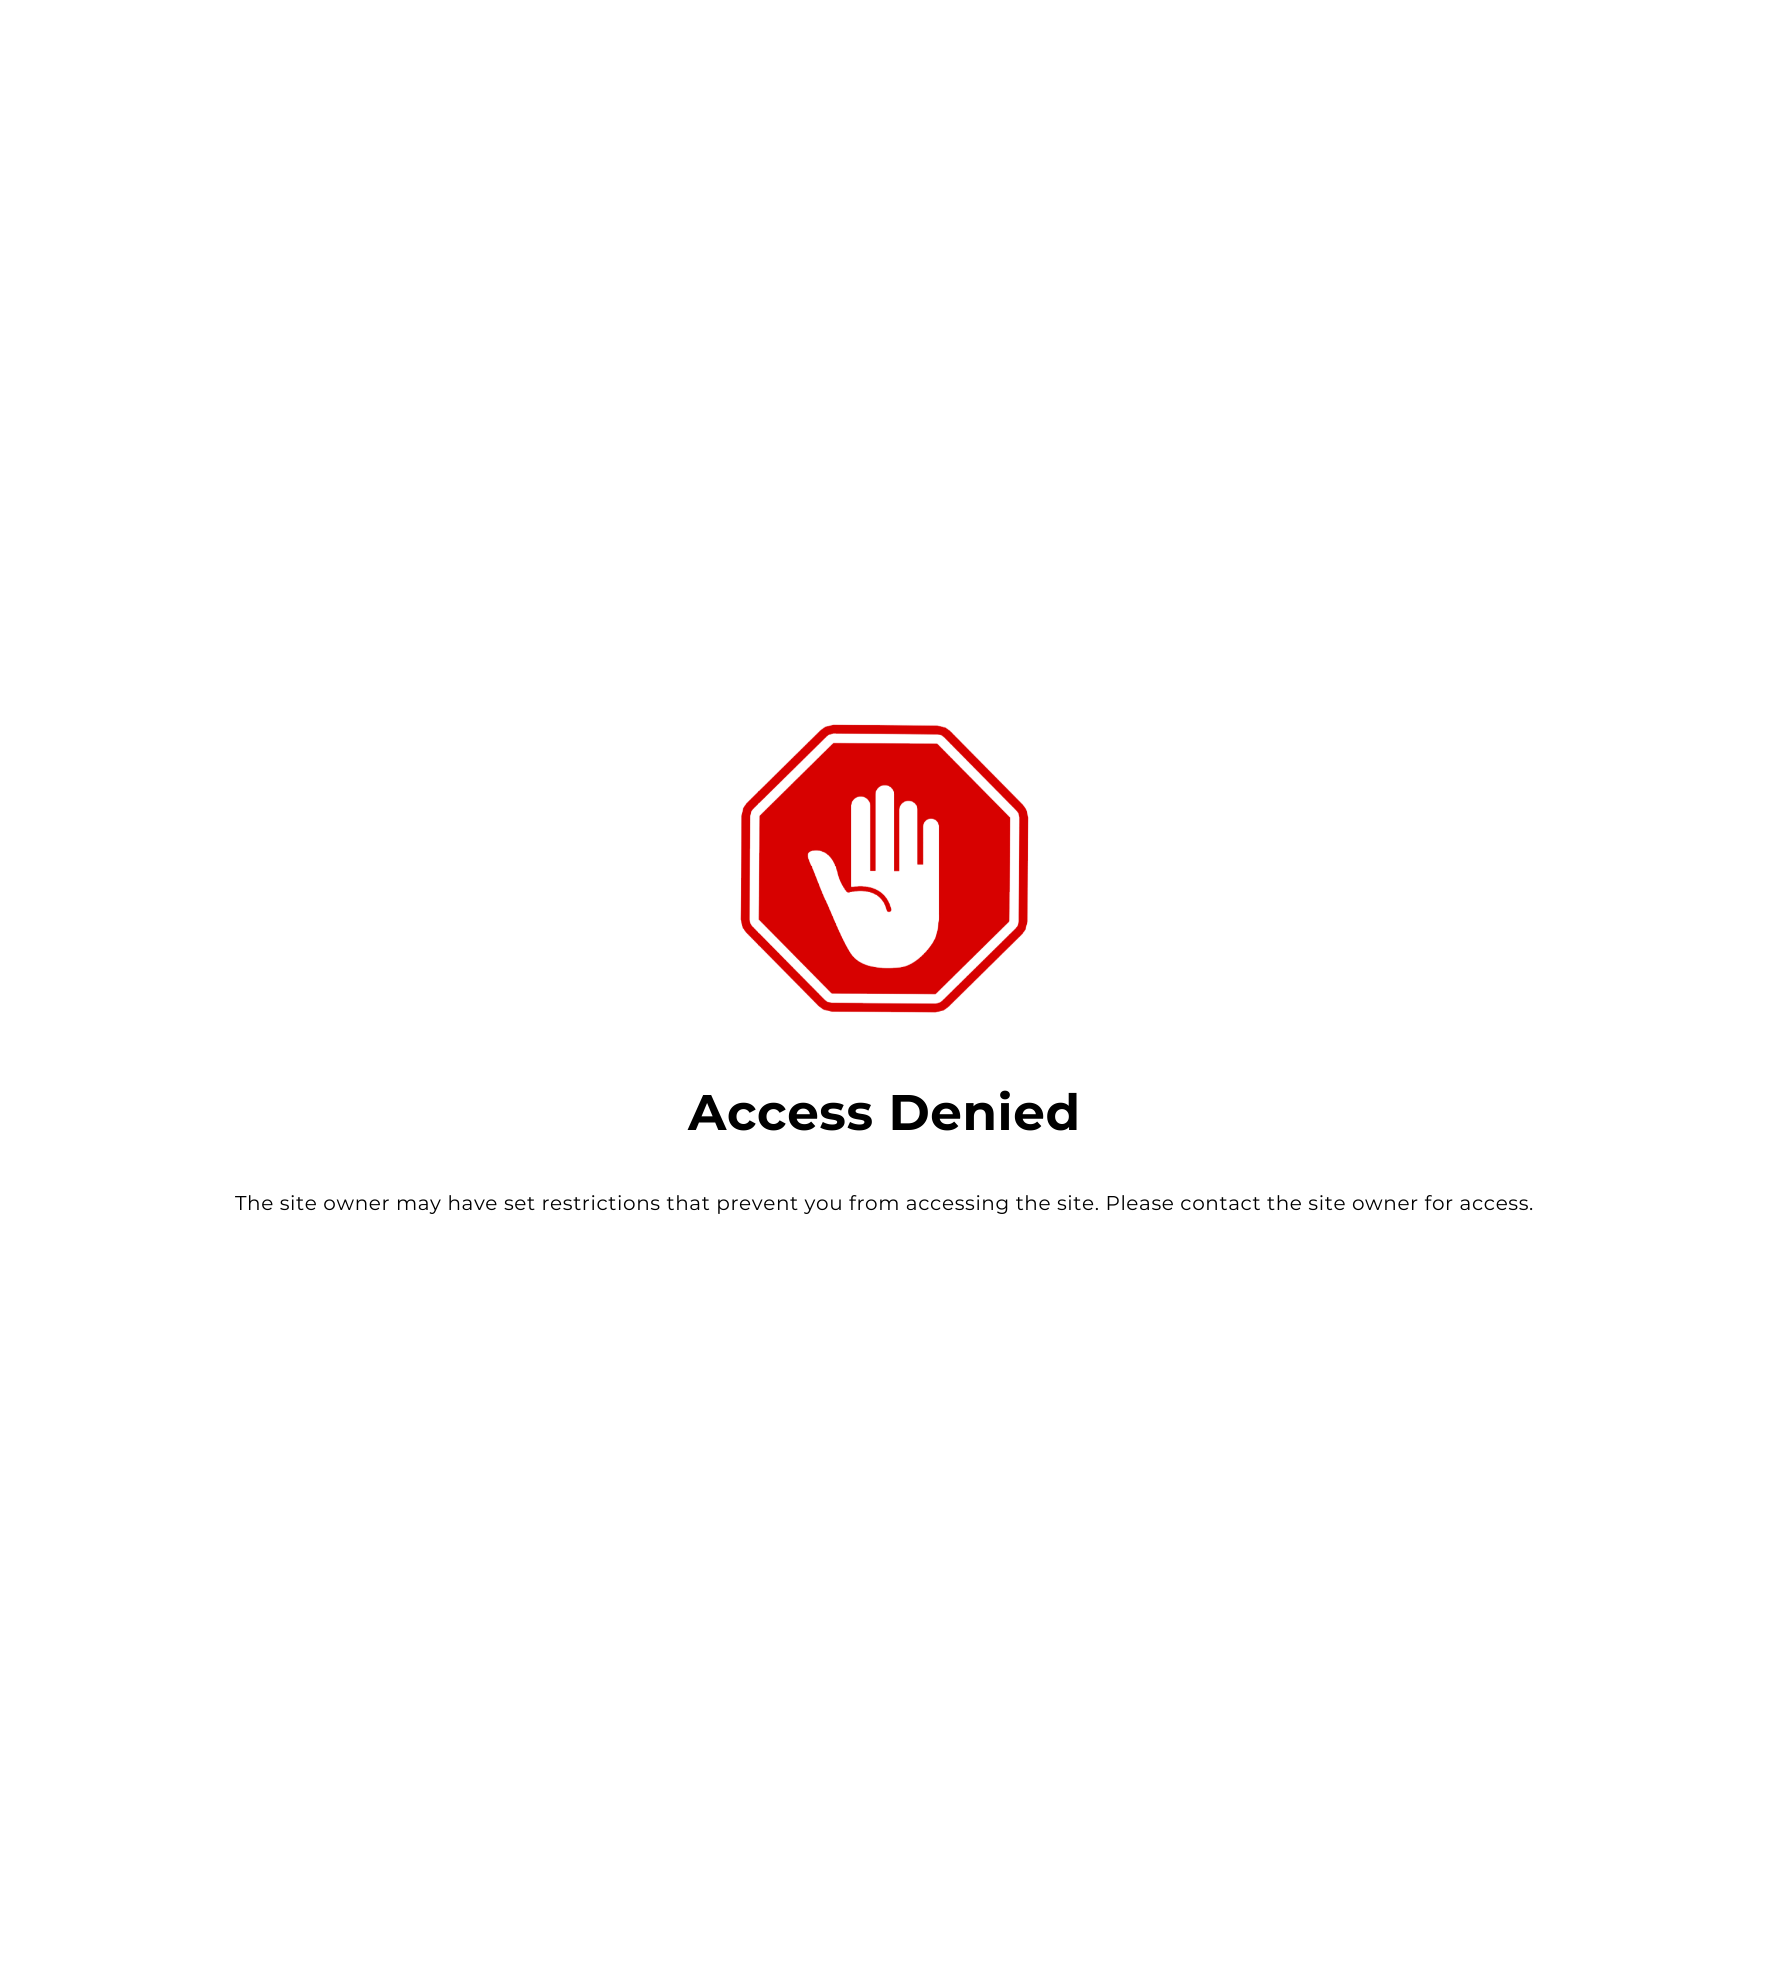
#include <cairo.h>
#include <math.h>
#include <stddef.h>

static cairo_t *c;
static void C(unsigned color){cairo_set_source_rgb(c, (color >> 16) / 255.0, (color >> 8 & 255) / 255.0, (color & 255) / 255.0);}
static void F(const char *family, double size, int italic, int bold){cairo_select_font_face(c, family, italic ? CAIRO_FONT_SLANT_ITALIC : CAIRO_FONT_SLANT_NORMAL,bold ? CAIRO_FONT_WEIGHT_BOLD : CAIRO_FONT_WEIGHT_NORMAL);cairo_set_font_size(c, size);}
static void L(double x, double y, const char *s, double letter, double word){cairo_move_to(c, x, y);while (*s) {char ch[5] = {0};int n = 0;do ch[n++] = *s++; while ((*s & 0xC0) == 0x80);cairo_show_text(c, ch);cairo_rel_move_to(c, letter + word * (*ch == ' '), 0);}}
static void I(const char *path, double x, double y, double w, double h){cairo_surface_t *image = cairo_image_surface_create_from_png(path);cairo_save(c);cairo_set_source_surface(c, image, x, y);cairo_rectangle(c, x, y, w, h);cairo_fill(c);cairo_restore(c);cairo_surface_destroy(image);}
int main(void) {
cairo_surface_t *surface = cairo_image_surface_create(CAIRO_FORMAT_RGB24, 1769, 1966);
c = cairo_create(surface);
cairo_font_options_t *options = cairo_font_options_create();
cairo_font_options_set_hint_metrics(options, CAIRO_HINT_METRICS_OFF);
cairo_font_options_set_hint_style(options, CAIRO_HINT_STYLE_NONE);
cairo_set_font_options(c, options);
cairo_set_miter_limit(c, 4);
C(0xffffff);
cairo_paint(c);
I("1.png",740,724,289,289);
F("Montserrat",50,0,1);
C(0x000000);
L(688,1130,"Access Denied",.6,0);
F("Montserrat",20,0,0);
L(235,1210,"The site owner may have set restrictions that prevent you from accessing the site. Please contact the site owner for access.",.6,0);
cairo_surface_write_to_png(surface, "o.png");
cairo_font_options_destroy(options);
cairo_destroy(c);
cairo_surface_destroy(surface);
return 0;
}
